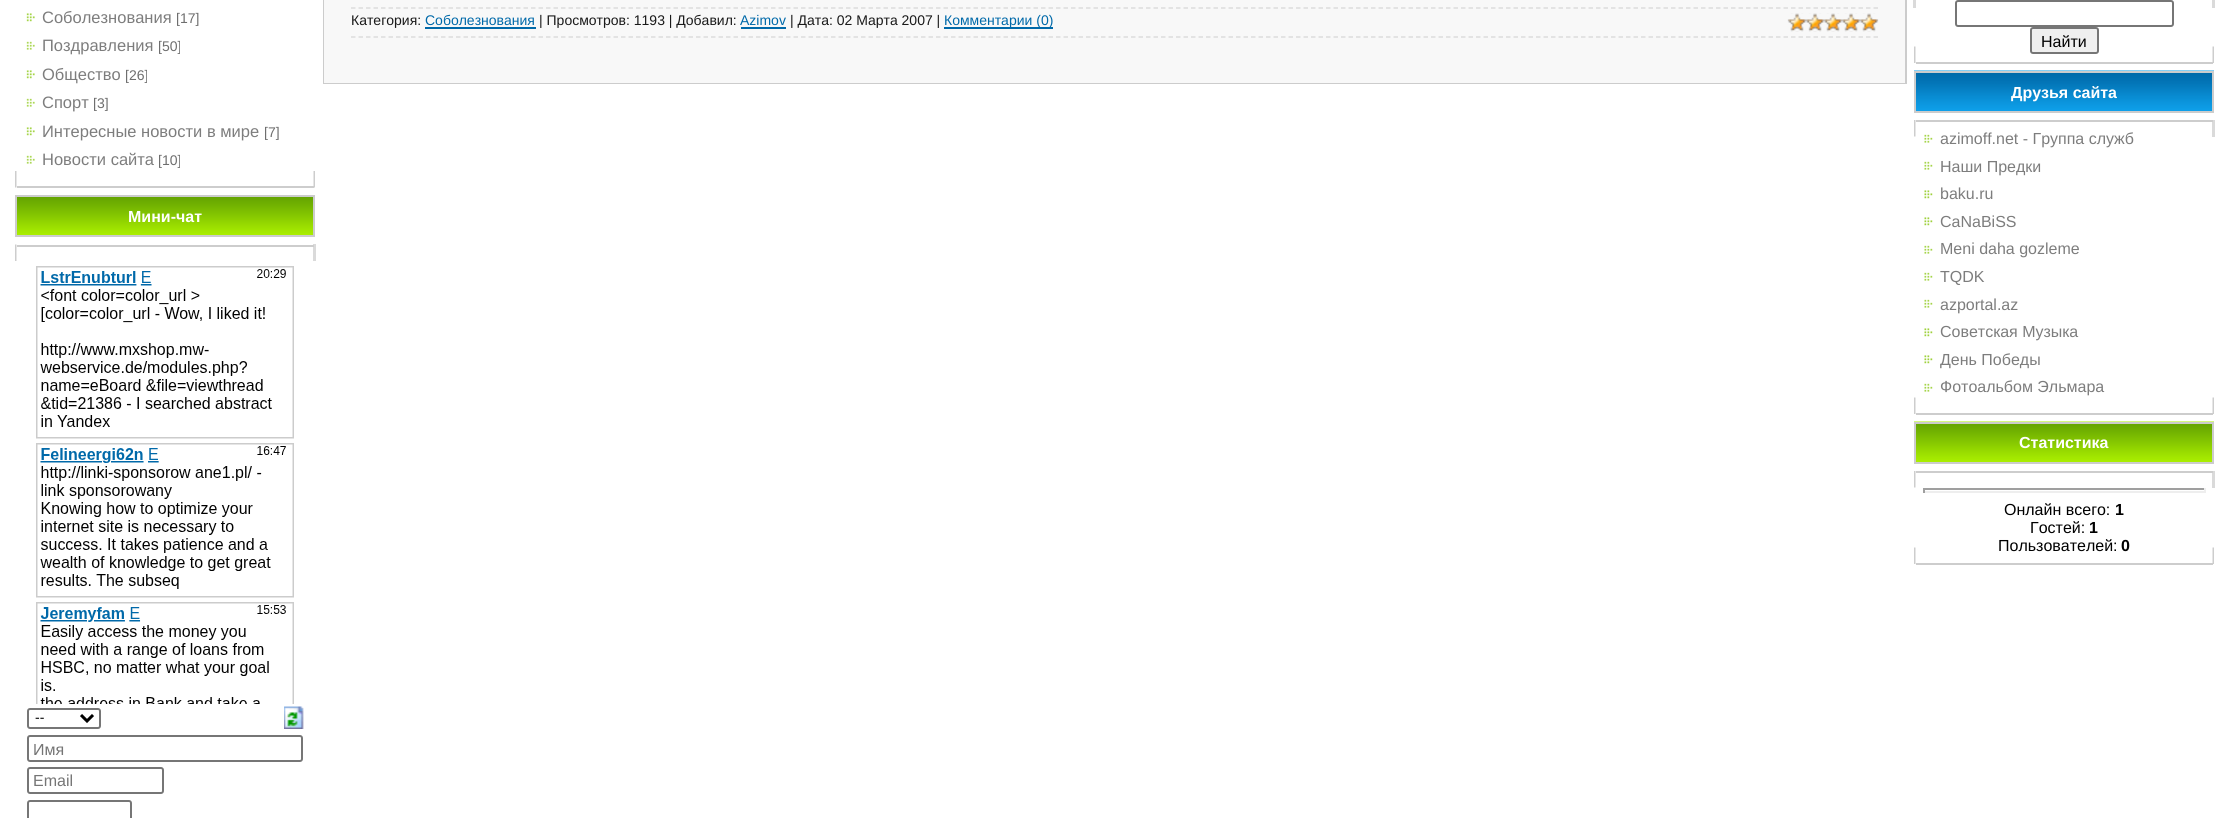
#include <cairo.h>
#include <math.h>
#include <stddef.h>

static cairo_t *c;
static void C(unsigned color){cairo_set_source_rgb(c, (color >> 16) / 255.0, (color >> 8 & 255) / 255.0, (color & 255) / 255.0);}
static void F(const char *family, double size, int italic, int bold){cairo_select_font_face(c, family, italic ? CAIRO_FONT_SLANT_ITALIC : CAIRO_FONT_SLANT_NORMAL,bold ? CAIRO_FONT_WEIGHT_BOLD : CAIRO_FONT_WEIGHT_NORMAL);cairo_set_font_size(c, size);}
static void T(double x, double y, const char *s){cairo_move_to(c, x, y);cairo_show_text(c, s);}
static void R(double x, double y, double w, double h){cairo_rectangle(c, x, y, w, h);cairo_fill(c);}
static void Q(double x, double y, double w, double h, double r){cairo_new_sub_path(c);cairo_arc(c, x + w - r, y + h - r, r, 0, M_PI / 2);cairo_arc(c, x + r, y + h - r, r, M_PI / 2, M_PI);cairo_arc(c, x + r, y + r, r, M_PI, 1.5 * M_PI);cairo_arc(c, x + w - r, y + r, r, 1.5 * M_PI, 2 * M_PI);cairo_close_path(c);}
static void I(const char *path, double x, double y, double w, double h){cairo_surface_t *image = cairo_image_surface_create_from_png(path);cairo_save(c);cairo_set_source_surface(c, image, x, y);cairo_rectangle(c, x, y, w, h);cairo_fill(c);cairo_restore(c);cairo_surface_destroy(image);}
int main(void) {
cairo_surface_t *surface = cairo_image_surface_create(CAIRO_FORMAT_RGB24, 2229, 818);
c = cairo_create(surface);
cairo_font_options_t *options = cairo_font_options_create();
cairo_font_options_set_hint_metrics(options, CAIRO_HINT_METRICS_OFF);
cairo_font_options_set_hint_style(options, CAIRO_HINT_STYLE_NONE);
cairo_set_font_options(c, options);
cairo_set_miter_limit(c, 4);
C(0xffffff);
cairo_paint(c);
C(0xdadada);
R(2212,471,3,17);
R(2212,120,3,17);
R(313,244,3,17);
C(0xcdcdcd);
R(17,186,297,2);
I("1.png",26,13,9,9);
F("Liberation Sans",16.5,0,0);
C(0x7d7d7d);
T(42,23,"Соболезнования");
F("Liberation Sans",14,0,0);
C(0x6e6e6e);
T(176,23,"[17]");
I("2.png",26,41,9,9);
F("Liberation Sans",16.5,0,0);
C(0x7d7d7d);
T(42,51,"Поздравления");
F("Liberation Sans",14,0,0);
C(0x6e6e6e);
T(158,51,"[50]");
I("1.png",26,70,9,9);
F("Liberation Sans",16.5,0,0);
C(0x7d7d7d);
T(42,80,"Общество");
F("Liberation Sans",14,0,0);
C(0x6e6e6e);
T(125,80,"[26]");
I("2.png",26,98,9,9);
F("Liberation Sans",16.5,0,0);
C(0x7d7d7d);
T(42,108,"Спорт");
F("Liberation Sans",14,0,0);
C(0x6e6e6e);
T(93,108,"[3]");
I("1.png",26,127,9,9);
F("Liberation Sans",16.5,0,0);
C(0x7d7d7d);
T(42,137,"Интересные новости в мире");
F("Liberation Sans",14,0,0);
C(0x6e6e6e);
T(264,137,"[7]");
I("2.png",26,155,9,9);
F("Liberation Sans",16.5,0,0);
C(0x7d7d7d);
T(42,165,"Новости сайта");
F("Liberation Sans",14,0,0);
C(0x6e6e6e);
T(158,165,"[10]");
I("3.png",15,171,2,17);
I("4.png",313,171,2,17);
I("5.png",17,197,296,38);
cairo_rectangle(c,16,196,298,40);
C(0xcccccc);
cairo_stroke(c);
F("Liberation Sans",16,0,1);
C(0xffffff);
T(128,222,"Мини-чат");
I("6.png",15,244,2,17);
C(0xcdcdcd);
R(17,245,297,2);
I("7.png",36,266,258,438);
Q(28,709,72,19,2);
C(0x767676);
cairo_stroke(c);
cairo_new_path(c);
cairo_move_to(c,81,715);
cairo_line_to(c,87,721);
cairo_line_to(c,93,715);
C(0x000000);
cairo_set_line_width(c,3);
cairo_stroke(c);
F("Liberation Sans",14,0,0);
T(35,722,"--");
I("8.png",284,706,20,23);
Q(28,736,274,25,2);
C(0x767676);
cairo_set_line_width(c,2);
cairo_stroke(c);
F("Liberation Sans",16,0,0);
C(0x757575);
T(33,755,"Имя");
Q(28,768,135,25,2);
C(0x767676);
cairo_stroke(c);
C(0x757575);
T(33,786,"Email");
Q(28,801,103,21,2);
C(0x767676);
cairo_stroke(c);
cairo_rectangle(c,324,-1,1582,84);
C(0xcccccc);
cairo_stroke(c);
C(0xf8f8f8);
R(324,0,1581,83);
cairo_new_path(c);
cairo_move_to(c,351,8);
cairo_line_to(c,1878,8);
C(0xdddddd);
cairo_set_line_width(c,1.5);
cairo_set_dash(c,(double[]){4.5,3},2,0);
cairo_stroke(c);
cairo_new_path(c);
cairo_move_to(c,351,37);
cairo_line_to(c,1878,37);
cairo_stroke(c);
F("Liberation Sans",14,0,0);
C(0x1a1a1a);
T(351,25,"Категория:");
C(0x0069a9);
T(425,25,"Соболезнования");
R(425,27,111,2);
C(0x1a1a1a);
T(539,25,"| Просмотров: 1193 | Добавил:");
C(0x0069a9);
T(740,25,"Azimov");
R(741,27,45,2);
C(0x1a1a1a);
T(790,25,"| Дата: 02 Марта 2007 |");
C(0x0069a9);
R(944,27,109,2);
T(944,25,"Комментарии (0)");
I("9.png",1787,13,92,19);
I("10.png",1788,13,90,19);
I("6.png",1914,46,2,17);
C(0xdadada);
R(1913,0,3,8);
C(0xcdcdcd);
R(1916,62,297,2);
Q(1956,1,217,25,2);
C(0x767676);
cairo_set_line_width(c,2);
cairo_set_dash(c,NULL,0,0);
cairo_stroke(c);
C(0xefefef);
Q(2031,28,67,25,2);
cairo_fill_preserve(c);
C(0x767676);
cairo_stroke(c);
F("Liberation Sans",16,0,0);
C(0x000000);
T(2041,47,"Найти");
I("11.png",2212,46,2,17);
C(0xdadada);
R(2212,0,3,8);
I("12.png",1914,70,300,41);
cairo_rectangle(c,1915,72,298,40);
C(0xcccccc);
cairo_stroke(c);
F("Liberation Sans",16,0,1);
C(0xffffff);
T(2011,98,"Друзья сайта");
I("6.png",1914,397,2,17);
I("3.png",1914,120,2,17);
C(0xcdcdcd);
R(1916,120,297,2);
R(1916,413,297,2);
I("13.png",1924,134,9,9);
F("Liberation Sans",16,0,0);
C(0x7d7d7d);
T(1940,144,"azimoff.net - Группа служб");
I("13.png",1924,161,9,9);
T(1940,172,"Наши Предки");
I("14.png",1924,190,9,9);
T(1940,199,"baku.ru");
I("14.png",1924,217,9,9);
T(1940,227,"CaNaBiSS");
I("13.png",1924,245,9,9);
T(1940,254,"Meni daha gozleme");
I("13.png",1924,272,9,9);
T(1940,282,"TQDK");
I("13.png",1924,299,9,9);
T(1940,310,"azportal.az");
I("14.png",1924,328,9,9);
T(1940,337,"Советская Музыка");
I("14.png",1924,355,9,9);
T(1940,365,"День Победы");
I("13.png",1924,383,9,9);
T(1940,392,"Фотоальбом Эльмара");
I("11.png",2212,397,2,17);
I("15.png",1914,421,300,41);
cairo_rectangle(c,1915,423,298,40);
C(0xcccccc);
cairo_stroke(c);
F("Liberation Sans",16,0,1);
C(0xffffff);
T(2019,448,"Статистика");
I("6.png",1914,547,2,17);
I("3.png",1914,471,2,17);
C(0xcdcdcd);
R(1916,471,297,2);
R(1916,563,297,2);
C(0x9f9f9f);
R(1923,488,282,2);
C(0xeeeeee);
R(2204,488,2,5);
R(1923,491,282,2);
C(0x9f9f9f);
R(1923,488,2,5);
F("Liberation Sans",16,0,0);
C(0x000000);
T(2004,515,"Онлайн всего:");
F("Liberation Sans",16,0,1);
T(2115,515,"1");
F("Liberation Sans",16,0,0);
T(2030,533,"Гостей:");
F("Liberation Sans",16,0,1);
T(2089,533,"1");
F("Liberation Sans",16,0,0);
T(1998,551,"Пользователей:");
F("Liberation Sans",16,0,1);
T(2121,551,"0");
I("11.png",2212,547,2,17);
cairo_surface_write_to_png(surface, "o.png");
cairo_font_options_destroy(options);
cairo_destroy(c);
cairo_surface_destroy(surface);
return 0;
}
